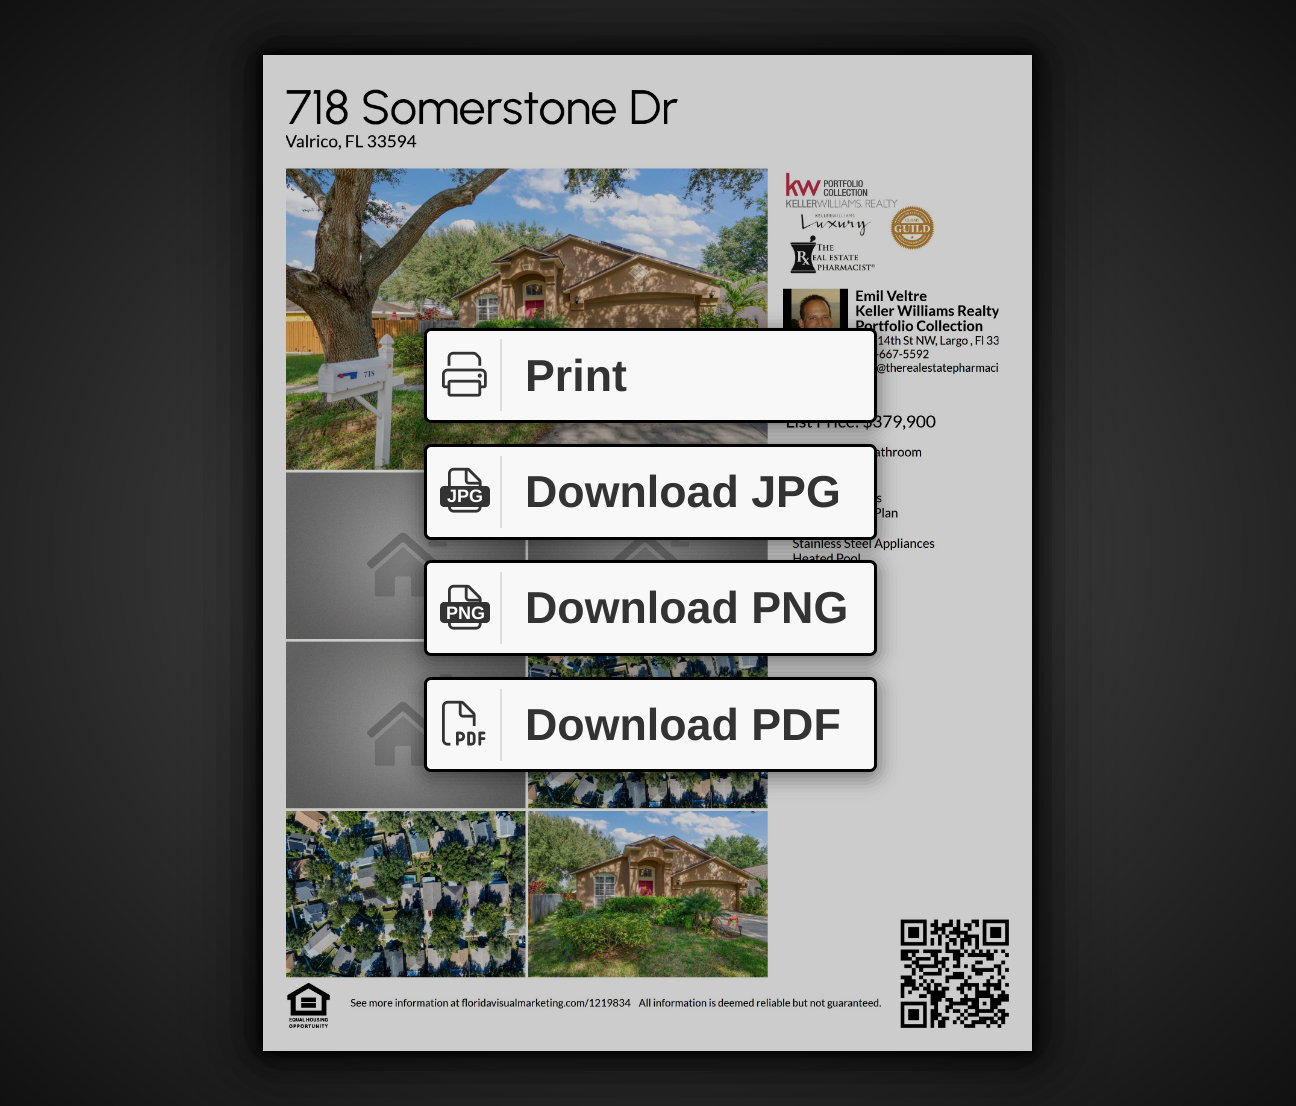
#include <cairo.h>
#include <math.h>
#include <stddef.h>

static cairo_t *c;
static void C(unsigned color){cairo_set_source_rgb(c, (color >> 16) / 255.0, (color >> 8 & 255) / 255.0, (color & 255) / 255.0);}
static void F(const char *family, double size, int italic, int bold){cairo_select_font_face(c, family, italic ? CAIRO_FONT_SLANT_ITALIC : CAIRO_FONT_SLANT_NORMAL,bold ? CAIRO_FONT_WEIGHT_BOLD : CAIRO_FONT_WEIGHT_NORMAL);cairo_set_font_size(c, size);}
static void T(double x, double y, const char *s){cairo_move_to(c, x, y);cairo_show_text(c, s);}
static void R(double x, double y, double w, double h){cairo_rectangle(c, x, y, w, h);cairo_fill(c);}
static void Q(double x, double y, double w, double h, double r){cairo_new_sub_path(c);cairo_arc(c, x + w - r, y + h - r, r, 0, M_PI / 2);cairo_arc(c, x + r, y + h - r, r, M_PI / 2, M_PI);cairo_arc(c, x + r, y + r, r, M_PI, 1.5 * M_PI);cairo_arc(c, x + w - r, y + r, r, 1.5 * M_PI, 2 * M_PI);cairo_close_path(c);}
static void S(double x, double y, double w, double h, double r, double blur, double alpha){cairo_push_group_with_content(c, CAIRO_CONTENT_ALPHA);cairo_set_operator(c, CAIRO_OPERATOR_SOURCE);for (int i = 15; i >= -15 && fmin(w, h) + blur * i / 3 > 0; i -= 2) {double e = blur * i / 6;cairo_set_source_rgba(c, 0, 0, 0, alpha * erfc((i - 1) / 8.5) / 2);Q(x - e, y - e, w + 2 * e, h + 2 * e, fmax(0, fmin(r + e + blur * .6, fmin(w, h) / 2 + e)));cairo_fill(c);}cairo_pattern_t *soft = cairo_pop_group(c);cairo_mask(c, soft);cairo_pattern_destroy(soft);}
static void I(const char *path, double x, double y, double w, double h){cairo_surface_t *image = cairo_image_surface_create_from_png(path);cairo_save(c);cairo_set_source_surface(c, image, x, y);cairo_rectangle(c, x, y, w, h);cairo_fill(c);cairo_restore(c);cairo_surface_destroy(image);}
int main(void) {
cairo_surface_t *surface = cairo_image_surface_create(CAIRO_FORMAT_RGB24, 1296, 1106);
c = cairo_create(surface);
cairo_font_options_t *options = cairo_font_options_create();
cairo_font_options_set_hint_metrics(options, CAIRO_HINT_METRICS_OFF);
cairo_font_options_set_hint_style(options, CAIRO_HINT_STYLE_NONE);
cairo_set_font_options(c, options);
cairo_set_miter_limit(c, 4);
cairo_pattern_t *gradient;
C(0xffffff);
cairo_paint(c);
gradient = cairo_pattern_create_radial(0,0,0,0,0,1);
cairo_pattern_set_matrix(gradient, &(cairo_matrix_t){1.0 / 916, 0, 0, 1.0 / 782, -1.0 * 648 / 916, -1.0 * 553 / 782});
cairo_pattern_add_color_stop_rgba(gradient,0,0.533,0.533,0.533,1);
cairo_pattern_add_color_stop_rgba(gradient,.25,0.333,0.333,0.333,1);
cairo_pattern_add_color_stop_rgba(gradient,.5,0.2,0.2,0.2,1);
cairo_pattern_add_color_stop_rgba(gradient,.75,0.133,0.133,0.133,1);
cairo_pattern_add_color_stop_rgba(gradient,1,0.067,0.067,0.067,1);
cairo_set_source(c,gradient);
cairo_pattern_destroy(gradient);
R(0,0,1296,1106);
C(0x000000);
S(263,55,769,996,0,40,1);
S(263,55,769,996,0,15,1);
S(263,55,769,996,0,5,1);
C(0xcccccc);
R(263,55,769,996);
I("1.png",286,89,723,939);
C(0x000000);
S(424,332,453,95,7,11,.5);
C(0xf8f8f8);
Q(425.5,329.5,450,92,5.5);
cairo_fill_preserve(c);
C(0x000000);
cairo_set_line_width(c,3);
cairo_stroke(c);
C(0xdddddd);
R(500,339,2,72);
I("2.png",442,351,45,46);
F("Liberation Sans",44.75,0,1);
C(0x333333);
T(525,391,"Print");
C(0x000000);
S(424,448,453,96,7,11,.5);
C(0xf8f8f8);
Q(425.5,445.5,450,93,5.5);
cairo_fill_preserve(c);
C(0x000000);
cairo_stroke(c);
C(0xdddddd);
R(500,456,2,72);
I("3.png",448,467,34,46);
C(0x333333);
Q(440,486,50,21,4);
cairo_fill(c);
F("Liberation Sans",18,0,1);
C(0xffffff);
T(447,502,"JPG");
F("Liberation Sans",44.75,0,1);
C(0x333333);
T(525,507,"Download JPG");
C(0x000000);
S(424,564,453,96,7,11,.5);
C(0xf8f8f8);
Q(425.5,561.5,450,93,5.5);
cairo_fill_preserve(c);
C(0x000000);
cairo_stroke(c);
C(0xdddddd);
R(500,572,2,72);
I("3.png",448,584,34,46);
C(0x333333);
Q(440,602,50,21,4);
cairo_fill(c);
F("Liberation Sans",18,0,1);
C(0xffffff);
T(446,619,"PNG");
F("Liberation Sans",44.75,0,1);
C(0x333333);
T(525,623,"Download PNG");
C(0x000000);
S(424,681,453,95,7,11,.5);
C(0xf8f8f8);
Q(425.5,678.5,450,92,5.5);
cairo_fill_preserve(c);
C(0x000000);
cairo_stroke(c);
C(0xdddddd);
R(500,689,2,72);
I("4.png",442,700,44,46);
C(0x333333);
T(525,740,"Download PDF");
cairo_surface_write_to_png(surface, "o.png");
cairo_font_options_destroy(options);
cairo_destroy(c);
cairo_surface_destroy(surface);
return 0;
}
